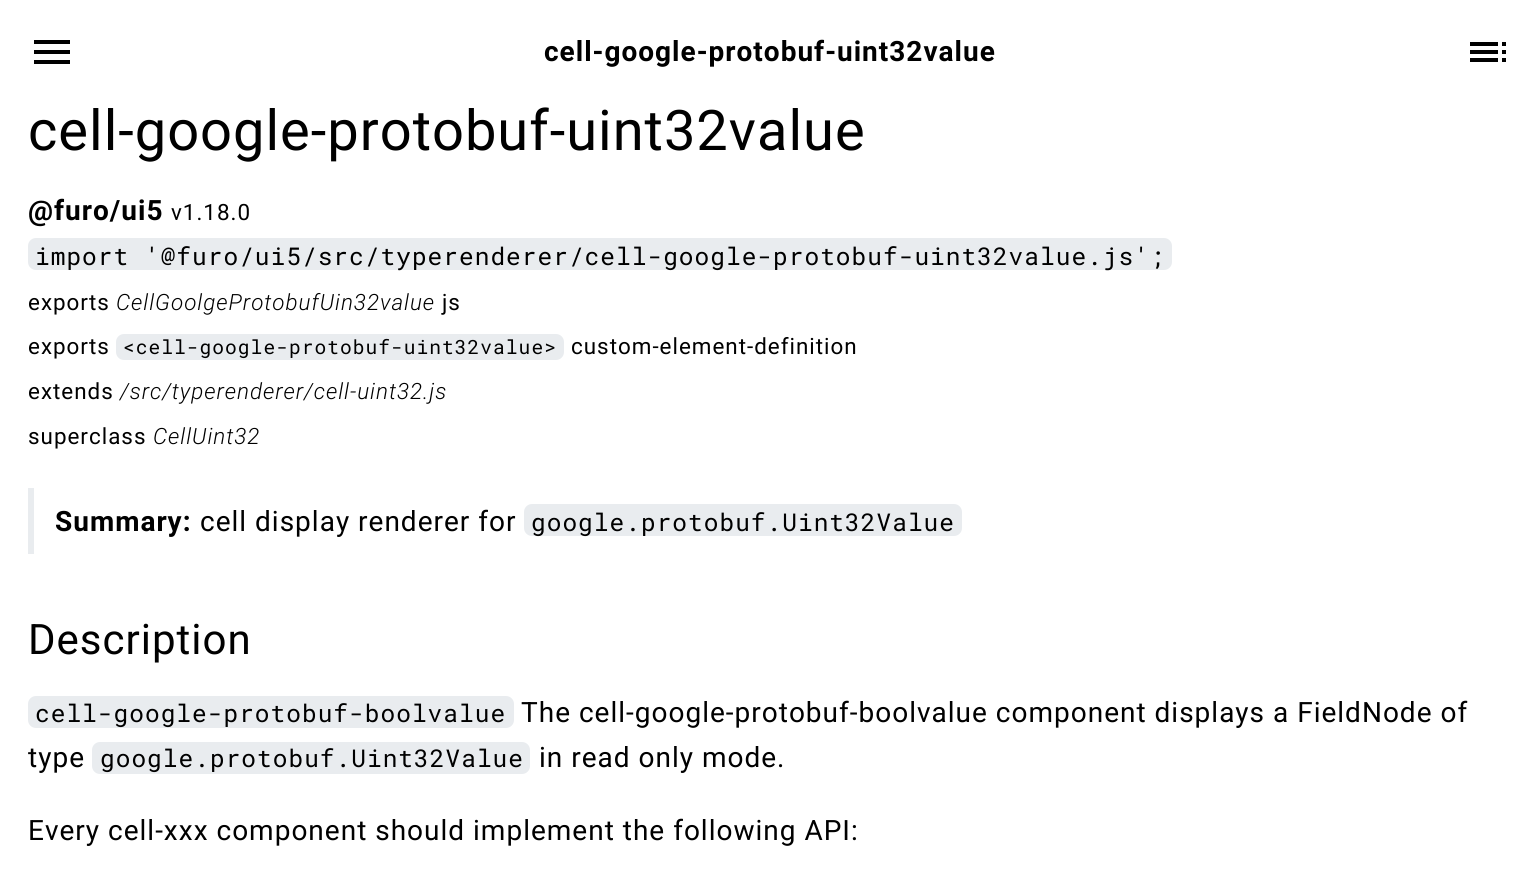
#include <cairo.h>
#include <math.h>
#include <stddef.h>

static cairo_t *c;
static void C(unsigned color){cairo_set_source_rgb(c, (color >> 16) / 255.0, (color >> 8 & 255) / 255.0, (color & 255) / 255.0);}
static void F(const char *family, double size, int italic, int bold){cairo_select_font_face(c, family, italic ? CAIRO_FONT_SLANT_ITALIC : CAIRO_FONT_SLANT_NORMAL,bold ? CAIRO_FONT_WEIGHT_BOLD : CAIRO_FONT_WEIGHT_NORMAL);cairo_set_font_size(c, size);}
static void L(double x, double y, const char *s, double letter, double word){cairo_move_to(c, x, y);while (*s) {char ch[5] = {0};int n = 0;do ch[n++] = *s++; while ((*s & 0xC0) == 0x80);cairo_show_text(c, ch);cairo_rel_move_to(c, letter + word * (*ch == ' '), 0);}}
static void R(double x, double y, double w, double h){cairo_rectangle(c, x, y, w, h);cairo_fill(c);}
static void Q(double x, double y, double w, double h, double r){cairo_new_sub_path(c);cairo_arc(c, x + w - r, y + h - r, r, 0, M_PI / 2);cairo_arc(c, x + r, y + h - r, r, M_PI / 2, M_PI);cairo_arc(c, x + r, y + r, r, M_PI, 1.5 * M_PI);cairo_arc(c, x + w - r, y + r, r, 1.5 * M_PI, 2 * M_PI);cairo_close_path(c);}
static void I(const char *path, double x, double y, double w, double h){cairo_surface_t *image = cairo_image_surface_create_from_png(path);cairo_save(c);cairo_set_source_surface(c, image, x, y);cairo_rectangle(c, x, y, w, h);cairo_fill(c);cairo_restore(c);cairo_surface_destroy(image);}
int main(void) {
cairo_surface_t *surface = cairo_image_surface_create(CAIRO_FORMAT_RGB24, 1539, 871);
c = cairo_create(surface);
cairo_font_options_t *options = cairo_font_options_create();
cairo_font_options_set_hint_metrics(options, CAIRO_HINT_METRICS_OFF);
cairo_font_options_set_hint_style(options, CAIRO_HINT_STYLE_NONE);
cairo_set_font_options(c, options);
cairo_set_miter_limit(c, 4);
C(0xffffff);
cairo_paint(c);
C(0x000000);
cairo_new_path(c);
cairo_move_to(c,34,64);
cairo_line_to(c,70,64);
cairo_line_to(c,70,60);
cairo_line_to(c,34,60);
cairo_close_path(c);
cairo_move_to(c,34,54);
cairo_line_to(c,70,54);
cairo_line_to(c,70,50);
cairo_line_to(c,34,50);
cairo_close_path(c);
cairo_move_to(c,34,40);
cairo_line_to(c,34,44);
cairo_line_to(c,70,44);
cairo_line_to(c,70,40);
cairo_close_path(c);
cairo_fill(c);
F("Roboto",28,0,1);
L(544,61,"cell-google-protobuf-uint32value",1,0);
I("1.png",1470,42,36,20);
F("Roboto",56,0,0);
L(28,150,"cell-google-protobuf-uint32value",1,0);
F("Roboto",28,0,1);
L(28,220,"@furo/ui5",1,0);
F("Roboto",22.4,0,0);
L(171,220,"v1.18.0",1,0);
C(0xe9ecef);
Q(28,238,1144,32,8);
cairo_fill(c);
F("Roboto Mono",24.5,0,0);
C(0x000000);
L(35,265,"import '@furo/ui5/src/typerenderer/cell-google-protobuf-uint32value.js';",1,0);
F("Roboto",22.4,0,0);
L(28,310,"exports",1,0);
F("Roboto Light",22.4,1,0);
L(116,310,"CellGoolgeProtobufUin32value",1,0);
F("Roboto",22.4,0,0);
L(442,310,"js",1,0);
L(28,354,"exports",1,0);
C(0xe9ecef);
Q(116,334,448,26,8);
cairo_fill(c);
F("Roboto Mono",19.6,0,0);
C(0x000000);
L(123,354,"<cell-google-protobuf-uint32value>",1,0);
F("Roboto",22.4,0,0);
L(571,354,"custom-element-definition",1,0);
L(28,399,"extends",1,0);
F("Roboto Light",22.4,1,0);
L(120,399,"/src/typerenderer/cell-uint32.js",1,0);
F("Roboto",22.4,0,0);
L(28,444,"superclass",1,0);
F("Roboto Light",22.4,1,0);
L(153,444,"CellUint32",1,0);
C(0xe9ecef);
R(28,488,6,66);
F("Roboto",28,0,1);
C(0x000000);
L(55,531,"Summary:",1,0);
F("Roboto",28,0,0);
L(200,531,"cell display renderer for",1,0);
C(0xe9ecef);
Q(524,504,438,32,8);
cairo_fill(c);
F("Roboto Mono",24.5,0,0);
C(0x000000);
L(531,531,"google.protobuf.Uint32Value",1,0);
F("Roboto",42,0,0);
L(28,654,"Description",1,0);
C(0xe9ecef);
Q(28,696,486,32,8);
cairo_fill(c);
F("Roboto Mono",24.5,0,0);
C(0x000000);
L(35,722,"cell-google-protobuf-boolvalue",1,0);
F("Roboto",28,0,0);
L(521,722,"The cell-google-protobuf-boolvalue component displays a FieldNode of",1,0);
L(28,767,"type",1,0);
C(0xe9ecef);
Q(92,742,438,32,8);
cairo_fill(c);
F("Roboto Mono",24.5,0,0);
C(0x000000);
L(100,767,"google.protobuf.Uint32Value",1,0);
F("Roboto",28,0,0);
L(539,767,"in read only mode.",1,0);
L(28,840,"Every cell-xxx component should implement the following API:",1,0);
cairo_surface_write_to_png(surface, "o.png");
cairo_font_options_destroy(options);
cairo_destroy(c);
cairo_surface_destroy(surface);
return 0;
}
